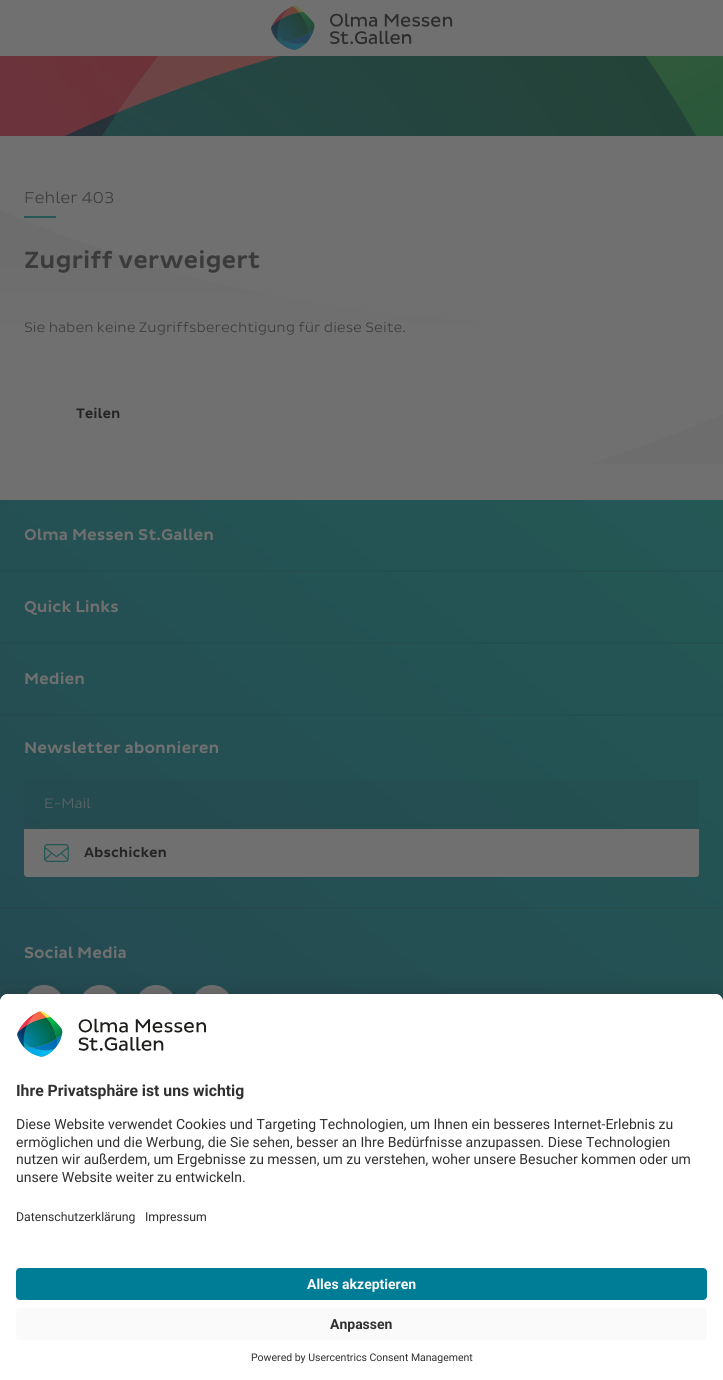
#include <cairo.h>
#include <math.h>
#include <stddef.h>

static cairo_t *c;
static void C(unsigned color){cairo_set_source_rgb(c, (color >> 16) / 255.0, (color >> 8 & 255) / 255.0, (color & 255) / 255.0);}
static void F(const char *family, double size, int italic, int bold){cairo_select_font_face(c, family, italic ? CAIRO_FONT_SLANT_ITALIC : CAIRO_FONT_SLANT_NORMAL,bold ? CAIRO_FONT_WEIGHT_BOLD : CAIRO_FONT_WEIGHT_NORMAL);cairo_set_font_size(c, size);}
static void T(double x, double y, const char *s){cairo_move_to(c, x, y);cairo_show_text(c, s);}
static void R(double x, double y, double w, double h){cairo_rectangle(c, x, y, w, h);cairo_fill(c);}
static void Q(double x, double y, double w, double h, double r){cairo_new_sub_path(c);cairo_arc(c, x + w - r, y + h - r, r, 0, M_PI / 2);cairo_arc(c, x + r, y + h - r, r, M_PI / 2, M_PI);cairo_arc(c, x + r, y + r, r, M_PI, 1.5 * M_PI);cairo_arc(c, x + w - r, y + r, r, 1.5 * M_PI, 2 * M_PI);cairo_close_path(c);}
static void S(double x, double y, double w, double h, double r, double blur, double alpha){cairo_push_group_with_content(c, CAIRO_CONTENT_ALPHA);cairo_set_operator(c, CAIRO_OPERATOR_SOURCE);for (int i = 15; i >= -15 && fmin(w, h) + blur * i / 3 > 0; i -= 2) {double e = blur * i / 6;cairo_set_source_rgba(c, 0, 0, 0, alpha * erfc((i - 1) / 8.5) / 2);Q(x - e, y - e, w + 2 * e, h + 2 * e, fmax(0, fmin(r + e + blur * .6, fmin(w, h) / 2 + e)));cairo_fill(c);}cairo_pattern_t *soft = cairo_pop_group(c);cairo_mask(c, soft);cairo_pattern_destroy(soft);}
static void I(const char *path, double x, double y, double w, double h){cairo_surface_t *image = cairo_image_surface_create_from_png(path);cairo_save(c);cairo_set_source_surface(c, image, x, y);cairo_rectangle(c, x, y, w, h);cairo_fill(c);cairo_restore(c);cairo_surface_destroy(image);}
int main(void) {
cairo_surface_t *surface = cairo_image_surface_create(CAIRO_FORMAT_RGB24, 723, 1380);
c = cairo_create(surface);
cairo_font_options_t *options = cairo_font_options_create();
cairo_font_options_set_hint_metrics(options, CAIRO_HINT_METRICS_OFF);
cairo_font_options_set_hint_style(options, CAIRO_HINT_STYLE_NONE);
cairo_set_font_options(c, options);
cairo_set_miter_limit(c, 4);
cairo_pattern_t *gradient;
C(0x707070);
cairo_paint(c);
I("1.png",271,6,182,44);
I("2.png",0,56,723,80);
F("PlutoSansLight",16,0,0);
C(0x3b3b3b);
T(24,203,"Fehler 403");
gradient = cairo_pattern_create_linear(73,249,73,371);
cairo_pattern_add_color_stop_rgba(gradient,0,0.427,0.427,0.427,1);
cairo_pattern_add_color_stop_rgba(gradient,.7,0.439,0.439,0.439,1);
cairo_set_source(c,gradient);
cairo_pattern_destroy(gradient);
cairo_set_fill_rule(c,CAIRO_FILL_RULE_EVEN_ODD);
cairo_new_path(c);
cairo_move_to(c,723,322);
cairo_line_to(c,545,322);
cairo_curve_to(c,353,322,169,283,0,210);
cairo_line_to(c,0,387);
cairo_line_to(c,723,387);
cairo_close_path(c);
cairo_fill(c);
C(0x245855);
R(24,216,32,2);
F("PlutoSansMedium",24,0,0);
C(0x3b3b3b);
T(24,268,"Zugriff verweigert");
F("PlutoSansLight",14,0,0);
T(24,332,"Sie haben keine Zugriffsberechtigung für diese Seite.");
F("PlutoSansMedium",14,0,0);
C(0x242424);
T(76,418,"Teilen");
cairo_save(c);
cairo_set_fill_rule(c,CAIRO_FILL_RULE_WINDING);
cairo_rectangle(c,0,414,723,50);
cairo_clip(c);
gradient = cairo_pattern_create_linear(650,453,650,575);
cairo_pattern_add_color_stop_rgba(gradient,0,0.427,0.427,0.427,1);
cairo_pattern_add_color_stop_rgba(gradient,.7,0.439,0.439,0.439,1);
cairo_set_source(c,gradient);
cairo_pattern_destroy(gradient);
cairo_set_fill_rule(c,CAIRO_FILL_RULE_EVEN_ODD);
cairo_new_path(c);
cairo_move_to(c,0,526);
cairo_line_to(c,178,526);
cairo_curve_to(c,370,526,554,487,723,414);
cairo_line_to(c,723,591);
cairo_line_to(c,0,591);
cairo_close_path(c);
cairo_fill(c);
cairo_restore(c);
gradient = cairo_pattern_create_linear(631,429,92,1128);
cairo_pattern_add_color_stop_rgba(gradient,0,0.141,0.345,0.333,1);
cairo_pattern_add_color_stop_rgba(gradient,1,0.141,0.286,0.318,1);
cairo_set_source(c,gradient);
cairo_pattern_destroy(gradient);
R(0,500,723,502);
gradient = cairo_pattern_create_linear(631,429,92,1128);
cairo_pattern_add_color_stop_rgba(gradient,0,0.141,0.325,0.314,1);
cairo_pattern_add_color_stop_rgba(gradient,1,0.141,0.275,0.298,1);
cairo_set_source(c,gradient);
cairo_pattern_destroy(gradient);
R(0,907,723,2);
R(0,714,723,2);
R(0,642,723,2);
R(0,570,723,2);
F("PlutoSansMedium",16,0,0);
C(0x707070);
T(24,540,"Olma Messen St.Gallen");
T(24,612,"Quick Links");
T(24,684,"Medien");
T(24,753,"Newsletter abonnieren");
cairo_set_source_rgba(c,0.141,0.247,0.267,0.15);
cairo_new_path(c);
cairo_move_to(c,27,780);
cairo_line_to(c,696,780);
cairo_curve_to(c,697.5,780,699,781.5,699,783);
cairo_line_to(c,699,829);
cairo_line_to(c,24,829);
cairo_line_to(c,24,783);
cairo_curve_to(c,24,781.5,25.5,780,27,780);
cairo_close_path(c);
cairo_fill(c);
F("PlutoSansLight",14,0,0);
C(0x5d6768);
T(44,808,"E-Mail");
C(0x707070);
cairo_new_path(c);
cairo_move_to(c,24,829);
cairo_line_to(c,699,829);
cairo_line_to(c,699,874);
cairo_curve_to(c,699,875.5,697.5,877,696,877);
cairo_line_to(c,27,877);
cairo_curve_to(c,25.5,877,24,875.5,24,874);
cairo_close_path(c);
cairo_fill(c);
I("3.png",44,844,25,18);
F("PlutoSansMedium",14,0,0);
C(0x242424);
T(84,857,"Abschicken");
F("PlutoSansMedium",16,0,0);
C(0x707070);
T(24,958,"Social Media");
cairo_new_path(c);
cairo_arc(c,44,1005,20,0,2 * M_PI);
cairo_fill(c);
cairo_arc(c,100,1005,20,0,2 * M_PI);
cairo_fill(c);
cairo_arc(c,156,1005,20,0,2 * M_PI);
cairo_fill(c);
cairo_arc(c,212,1005,20,0,2 * M_PI);
cairo_fill(c);
C(0x000000);
S(0,1014,723,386,8,14,.3);
S(0,999,723,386,8,13,.22);
C(0xffffff);
cairo_new_path(c);
cairo_move_to(c,8,994);
cairo_line_to(c,715,994);
cairo_curve_to(c,719.5,994,723,997.5,723,1002);
cairo_line_to(c,723,1380);
cairo_line_to(c,0,1380);
cairo_line_to(c,0,1002);
cairo_curve_to(c,0,997.5,3.5,994,8,994);
cairo_close_path(c);
cairo_fill(c);
cairo_new_path(c);
cairo_move_to(c,8,994);
cairo_line_to(c,715,994);
cairo_curve_to(c,719.5,994,723,997.5,723,1002);
cairo_line_to(c,723,1256);
cairo_line_to(c,0,1256);
cairo_line_to(c,0,1002);
cairo_curve_to(c,0,997.5,3.5,994,8,994);
cairo_close_path(c);
cairo_fill(c);
I("4.png",17,1011,190,46);
F("Roboto",15.75,0,1);
C(0x303030);
T(16,1096,"Ihre Privatsphäre ist uns wichtig");
F("Roboto",14,0,0);
T(16,1129,"Diese Website verwendet Cookies und Targeting Technologien, um Ihnen ein besseres Internet-Erlebnis zu");
T(16,1147,"ermöglichen und die Werbung, die Sie sehen, besser an Ihre Bedürfnisse anzupassen. Diese Technologien");
T(16,1164,"nutzen wir außerdem, um Ergebnisse zu messen, um zu verstehen, woher unsere Besucher kommen oder um");
T(16,1182,"unsere Website weiter zu entwickeln.");
F("Roboto",12.25,0,0);
T(16,1221,"Datenschutzerklärung");
T(145,1221,"Impressum");
C(0x007d96);
Q(16,1268,691,32,4);
cairo_fill(c);
F("Roboto",14,0,1);
C(0xfafafa);
T(307,1289,"Alles akzeptieren");
Q(16,1308,691,32,4);
cairo_fill(c);
C(0x303030);
T(330,1329,"Anpassen");
F("Roboto",10.5,0,0);
T(251,1361,"Powered by Usercentrics Consent Management");
cairo_surface_write_to_png(surface, "o.png");
cairo_font_options_destroy(options);
cairo_destroy(c);
cairo_surface_destroy(surface);
return 0;
}
